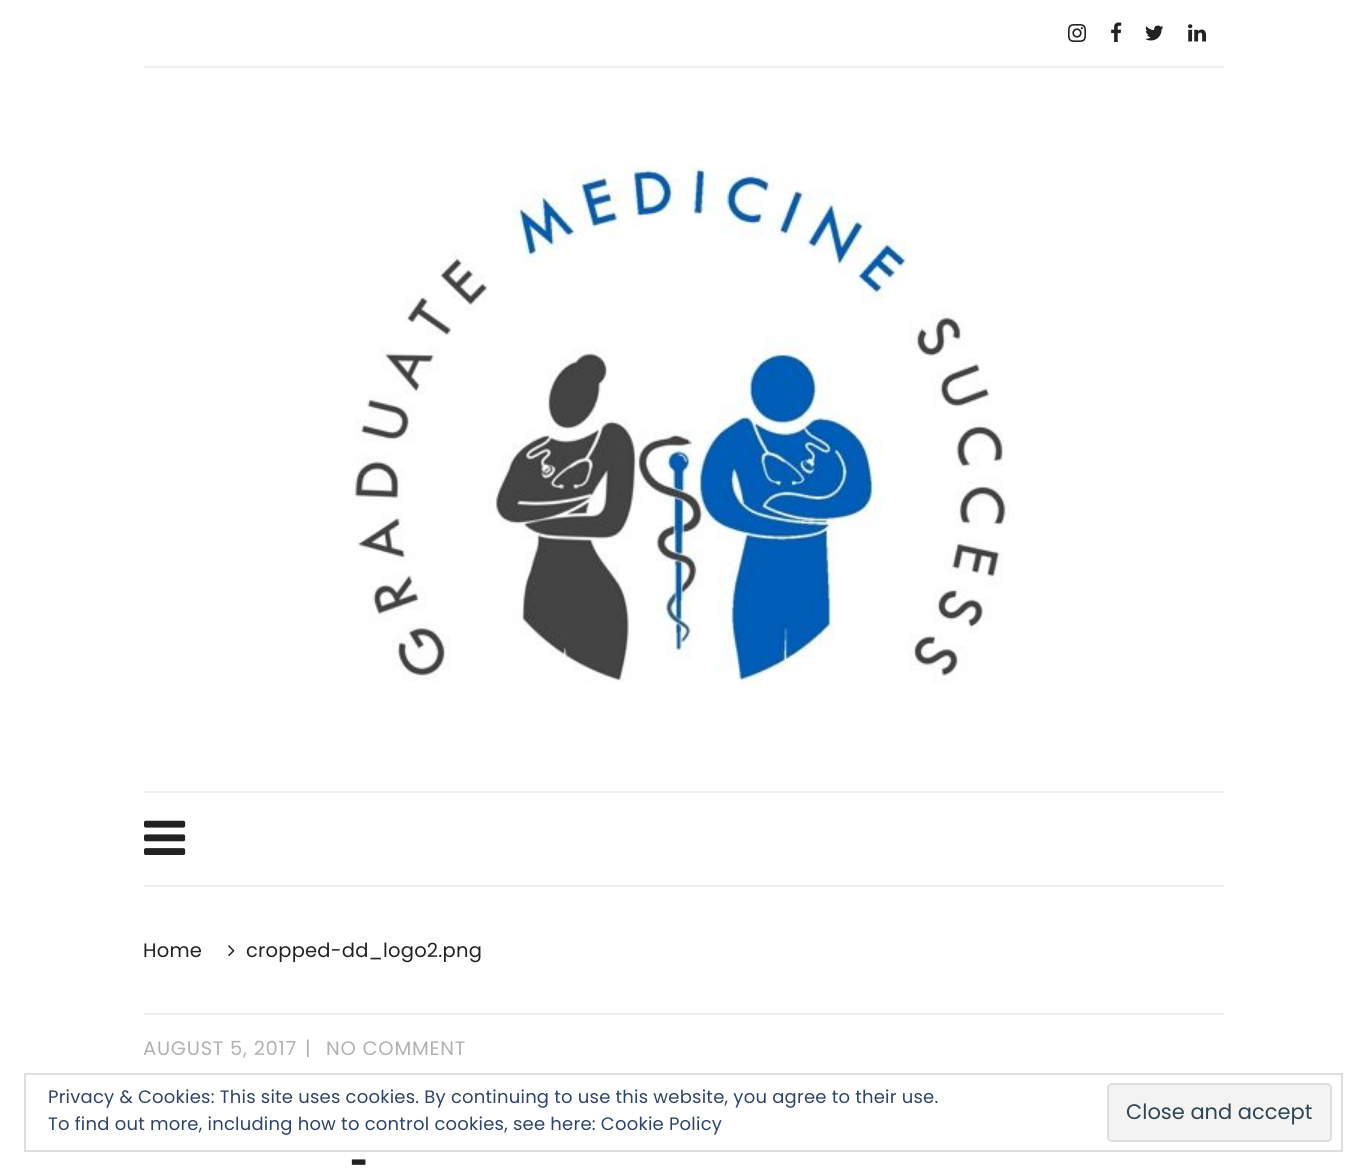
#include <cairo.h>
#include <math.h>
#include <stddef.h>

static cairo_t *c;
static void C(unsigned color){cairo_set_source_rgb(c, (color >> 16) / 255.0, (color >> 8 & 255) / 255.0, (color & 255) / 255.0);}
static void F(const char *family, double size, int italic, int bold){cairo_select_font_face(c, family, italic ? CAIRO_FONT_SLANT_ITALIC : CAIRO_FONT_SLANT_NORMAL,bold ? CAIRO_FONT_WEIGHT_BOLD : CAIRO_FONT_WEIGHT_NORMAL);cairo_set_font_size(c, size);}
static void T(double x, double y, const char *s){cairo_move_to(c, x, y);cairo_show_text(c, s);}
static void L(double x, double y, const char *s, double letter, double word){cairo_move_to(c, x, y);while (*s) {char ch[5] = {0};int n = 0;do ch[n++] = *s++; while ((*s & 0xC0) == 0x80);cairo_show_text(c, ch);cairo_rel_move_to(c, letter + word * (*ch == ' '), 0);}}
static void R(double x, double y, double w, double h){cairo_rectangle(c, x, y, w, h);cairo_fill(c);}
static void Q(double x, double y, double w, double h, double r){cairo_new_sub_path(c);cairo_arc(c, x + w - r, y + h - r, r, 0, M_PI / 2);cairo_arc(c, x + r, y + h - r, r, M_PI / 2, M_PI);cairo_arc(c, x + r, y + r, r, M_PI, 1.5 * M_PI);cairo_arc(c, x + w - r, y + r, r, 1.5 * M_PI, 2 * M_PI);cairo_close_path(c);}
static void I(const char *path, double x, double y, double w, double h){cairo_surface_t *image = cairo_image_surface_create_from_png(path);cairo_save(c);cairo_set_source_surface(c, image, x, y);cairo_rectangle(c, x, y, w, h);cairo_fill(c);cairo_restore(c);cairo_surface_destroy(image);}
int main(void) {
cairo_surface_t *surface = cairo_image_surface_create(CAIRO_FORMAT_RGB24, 1366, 1176);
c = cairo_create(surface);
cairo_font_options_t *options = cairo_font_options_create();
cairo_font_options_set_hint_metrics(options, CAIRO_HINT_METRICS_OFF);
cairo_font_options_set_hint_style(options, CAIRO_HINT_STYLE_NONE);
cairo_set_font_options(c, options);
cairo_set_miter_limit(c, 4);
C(0xffffff);
cairo_paint(c);
C(0xeeeeee);
R(144,66,1080,2);
I("1.png",1068,24,18,18);
I("2.png",1111,22,11,20);
I("3.png",1145,25,19,16);
I("4.png",1188,24,18,18);
I("5.png",355,166,659,523);
R(144,791,1080,2);
R(144,885,1080,2);
I("6.png",144,820,42,35);
F("Poppins",19.5,0,0);
C(0x222222);
L(143,957,"Home",.22,0);
I("7.png",228,945,7,12);
L(246,957,"cropped-dd_logo2.png",.22,0);
C(0xeeeeee);
R(144,1013,1080,2);
C(0xb1b1b1);
L(143,1055,"AUGUST 5, 2017",.75,0);
L(305,1055,"|",.75,0);
L(326,1055,"NO COMMENT",.75,0);
F("Oswald SemiBold",54,0,0);
C(0x222222);
T(350,1178,"-");
cairo_rectangle(c,25,1074,1317,77);
C(0xdedede);
cairo_stroke(c);
F("Poppins",18,0,0);
C(0x2e4467);
L(48,1103,"Privacy & Cookies: This site uses cookies. By continuing to use this website, you agree to their use.",.22,0);
L(48,1130,"To find out more, including how to control cookies, see here: Cookie Policy",.22,0);
C(0xf3f3f3);
Q(1108,1084,223,57,4);
cairo_fill_preserve(c);
C(0xdedede);
cairo_stroke(c);
F("Poppins",21,0,0);
C(0x2e4453);
T(1126,1119,"Close and accept");
cairo_surface_write_to_png(surface, "o.png");
cairo_font_options_destroy(options);
cairo_destroy(c);
cairo_surface_destroy(surface);
return 0;
}
